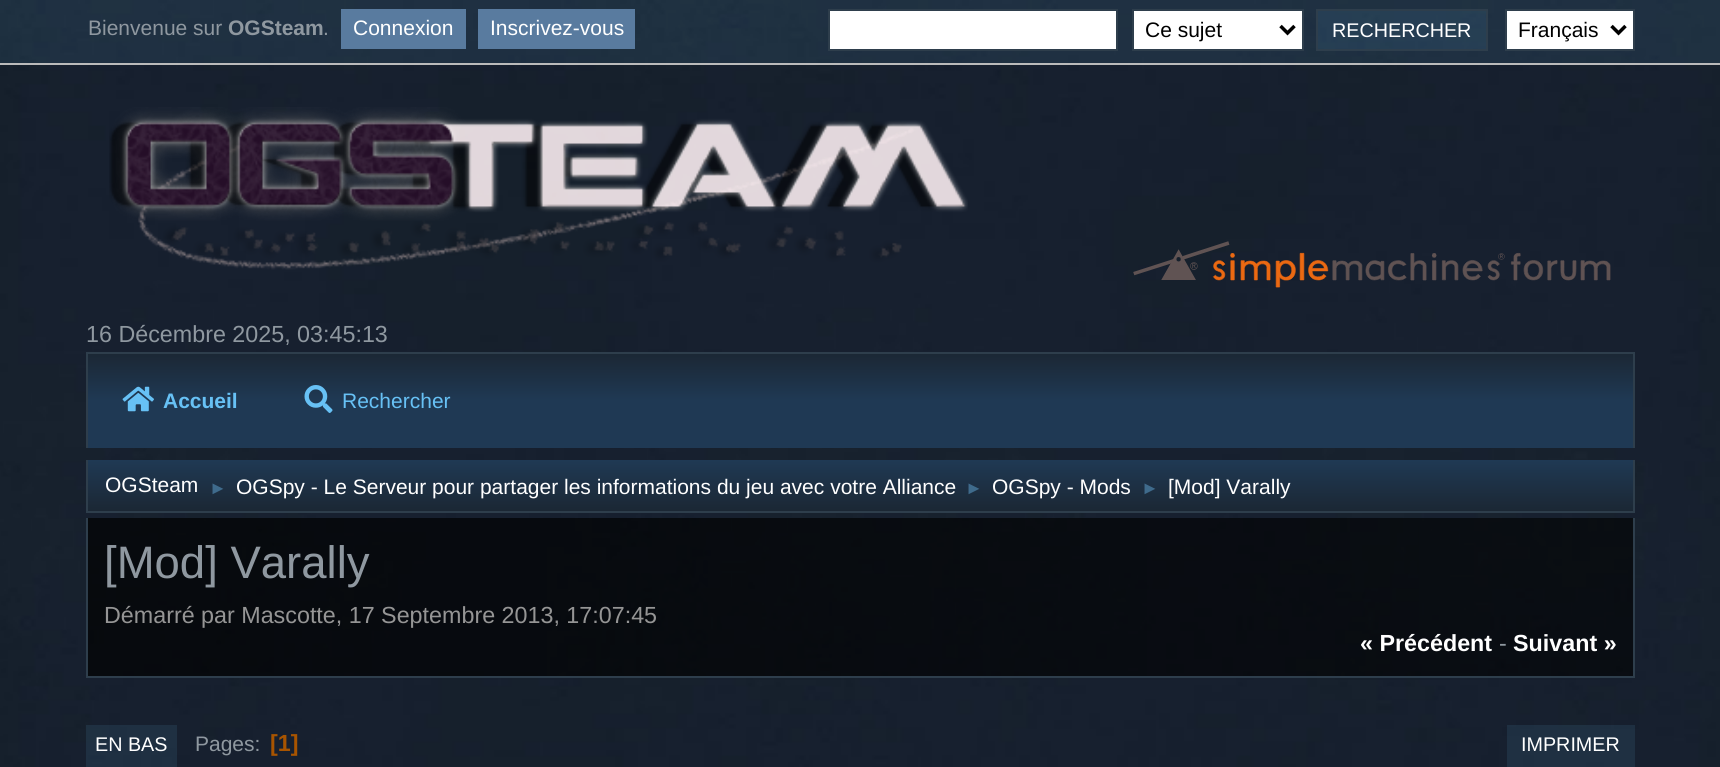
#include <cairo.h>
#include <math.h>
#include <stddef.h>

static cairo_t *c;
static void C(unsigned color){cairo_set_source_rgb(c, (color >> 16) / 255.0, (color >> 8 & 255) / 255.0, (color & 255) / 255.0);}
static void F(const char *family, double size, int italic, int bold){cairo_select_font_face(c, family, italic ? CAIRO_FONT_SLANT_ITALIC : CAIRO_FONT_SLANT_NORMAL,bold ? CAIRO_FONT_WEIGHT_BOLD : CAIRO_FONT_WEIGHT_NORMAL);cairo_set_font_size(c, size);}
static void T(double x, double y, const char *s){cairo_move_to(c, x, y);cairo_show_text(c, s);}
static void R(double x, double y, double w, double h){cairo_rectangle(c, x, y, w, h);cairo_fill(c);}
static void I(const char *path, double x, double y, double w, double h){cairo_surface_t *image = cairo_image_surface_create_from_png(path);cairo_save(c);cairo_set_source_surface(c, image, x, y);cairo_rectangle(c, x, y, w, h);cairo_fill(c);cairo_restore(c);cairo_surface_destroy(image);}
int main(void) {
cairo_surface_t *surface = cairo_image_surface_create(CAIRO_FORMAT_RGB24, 1720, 767);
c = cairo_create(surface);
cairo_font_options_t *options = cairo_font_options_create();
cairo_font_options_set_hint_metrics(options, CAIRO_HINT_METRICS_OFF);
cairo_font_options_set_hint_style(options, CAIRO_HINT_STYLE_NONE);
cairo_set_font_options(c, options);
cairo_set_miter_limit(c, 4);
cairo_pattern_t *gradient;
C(0xffffff);
cairo_paint(c);
I("1.png",0,0,1720,767);
cairo_set_source_rgba(c,0.404,0.757,0.961,0.1);
R(0,0,1720,63);
C(0xbbbbbb);
R(0,63,1720,2);
F("Liberation Sans",21,0,0);
C(0x8f98a0);
T(88,35,"Bienvenue sur");
F("Liberation Sans",21,0,1);
T(228,35,"OGSteam");
F("Liberation Sans",21,0,0);
T(323,35,".");
C(0x597b9f);
R(341,9,125,40);
C(0xffffff);
T(353,35,"Connexion");
C(0x597b9f);
R(478,9,157,40);
C(0xffffff);
T(490,35,"Inscrivez-vous");
cairo_rectangle(c,829,10,288,40);
cairo_fill_preserve(c);
C(0x2e3e4c);
cairo_stroke(c);
C(0xffffff);
cairo_rectangle(c,1133,10,170,40);
cairo_fill_preserve(c);
C(0x2e3e4c);
cairo_stroke(c);
cairo_new_path(c);
cairo_move_to(c,1280.5,26);
cairo_line_to(c,1287.5,33);
cairo_line_to(c,1294.5,26);
C(0x000000);
cairo_set_line_width(c,3.5);
cairo_stroke(c);
T(1145,37,"Ce sujet");
cairo_set_source_rgba(c,0.404,0.757,0.961,0.1);
cairo_rectangle(c,1317,10,170,40);
cairo_fill_preserve(c);
C(0x2e3e4c);
cairo_set_line_width(c,2);
cairo_stroke(c);
F("Liberation Sans",19.75,0,0);
C(0xffffff);
T(1332,37,"RECHERCHER");
cairo_rectangle(c,1506,10,128,40);
cairo_fill_preserve(c);
C(0x2e3e4c);
cairo_stroke(c);
cairo_new_path(c);
cairo_move_to(c,1611.5,26);
cairo_line_to(c,1618.5,33);
cairo_line_to(c,1625.5,26);
C(0x000000);
cairo_set_line_width(c,3.5);
cairo_stroke(c);
F("Liberation Sans",21,0,0);
T(1518,37,"Français");
I("2.png",109,107,859,163);
I("3.png",1133,241,478,47);
F("Liberation Sans",23.3,0,0);
C(0x8f98a0);
T(86,342,"16 Décembre 2025, 03:45:13");
gradient = cairo_pattern_create_linear(860,353,860,448);
cairo_pattern_add_color_stop_rgba(gradient,0,0.106,0.153,0.204,1);
cairo_pattern_add_color_stop_rgba(gradient,.5,0.122,0.224,0.329,1);
cairo_set_source(c,gradient);
cairo_pattern_destroy(gradient);
R(88,354,1545,94);
C(0x2e3e4c);
R(86,352,1549,2);
R(1633,352,2,96);
R(86,352,2,96);
I("4.png",122,386,32,26);
F("Liberation Sans",21,0,1);
C(0x67c1f5);
T(163,408,"Accueil");
I("5.png",304,385,29,28);
F("Liberation Sans",21,0,0);
T(342,408,"Rechercher");
gradient = cairo_pattern_create_linear(860,460,860,511);
cairo_pattern_add_color_stop_rgba(gradient,0,0.122,0.224,0.329,1);
cairo_pattern_add_color_stop_rgba(gradient,1,0.106,0.153,0.204,1);
cairo_set_source(c,gradient);
cairo_pattern_destroy(gradient);
R(88,460,1545,51);
C(0x2e3e4c);
R(1633,460,2,53);
R(86,511,1549,2);
R(86,460,2,53);
C(0xffffff);
T(105,492,"OGSteam");
F("Liberation Sans",18,0,0);
C(0x3f6b8c);
T(209,494,"►");
F("Liberation Sans",21,0,0);
C(0xffffff);
T(236,494,"OGSpy - Le Serveur pour partager les informations du jeu avec votre Alliance");
F("Liberation Sans",18,0,0);
C(0x3f6b8c);
T(965,494,"►");
F("Liberation Sans",21,0,0);
C(0xffffff);
T(992,494,"OGSpy - Mods");
F("Liberation Sans",18,0,0);
C(0x3f6b8c);
T(1141,494,"►");
F("Liberation Sans",21,0,0);
C(0xffffff);
T(1168,494,"[Mod] Varally");
C(0x2e3e4c);
R(1633,518,2,159);
R(86,676,1549,2);
R(86,518,2,159);
F("Liberation Sans",45.5,0,0);
C(0x8f98a0);
T(104,578,"[Mod] Varally");
F("Liberation Sans",23.3,0,0);
C(0x959595);
T(104,623,"Démarré par Mascotte, 17 Septembre 2013, 17:07:45");
F("Liberation Sans",23.3,0,1);
C(0xffffff);
T(1360,651,"« Précédent");
F("Liberation Sans",23.3,0,0);
C(0x8f98a0);
T(1499,651,"-");
F("Liberation Sans",23.3,0,1);
C(0xffffff);
T(1513,651,"Suivant »");
cairo_set_source_rgba(c,0.404,0.757,0.961,0.1);
R(86,725,91,42);
F("Liberation Sans",19.75,0,0);
C(0xffffff);
T(95,751,"EN BAS");
F("Liberation Sans",21,0,0);
C(0x8f98a0);
T(195,751,"Pages:");
F("Liberation Sans",23.3,0,1);
C(0xa85400);
T(270,751,"[1]");
cairo_set_source_rgba(c,0.404,0.757,0.961,0.1);
R(1507,725,128,42);
F("Liberation Sans",19.75,0,0);
C(0xffffff);
T(1521,751,"IMPRIMER");
cairo_surface_write_to_png(surface, "o.png");
cairo_font_options_destroy(options);
cairo_destroy(c);
cairo_surface_destroy(surface);
return 0;
}
